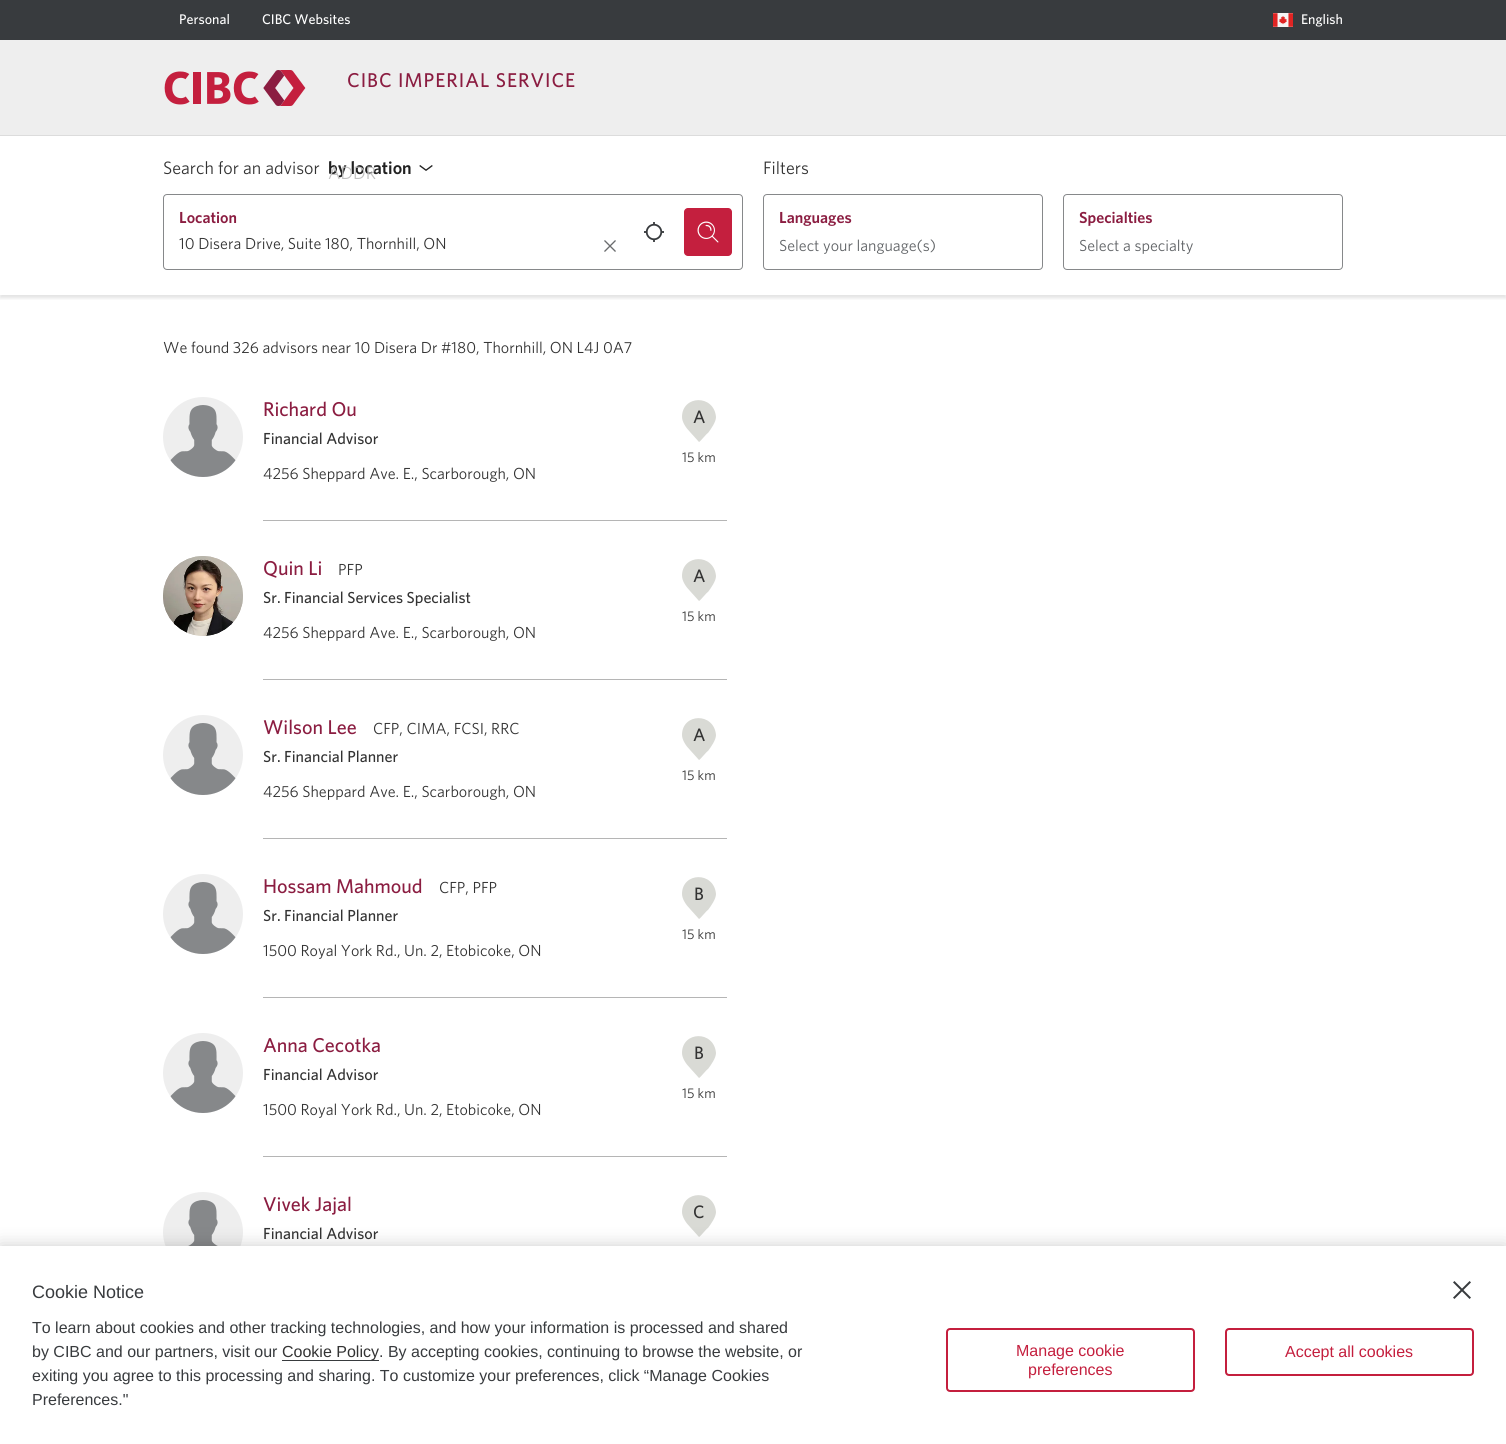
#include <cairo.h>
#include <math.h>
#include <stddef.h>

static cairo_t *c;
static void C(unsigned color){cairo_set_source_rgb(c, (color >> 16) / 255.0, (color >> 8 & 255) / 255.0, (color & 255) / 255.0);}
static void F(const char *family, double size, int italic, int bold){cairo_select_font_face(c, family, italic ? CAIRO_FONT_SLANT_ITALIC : CAIRO_FONT_SLANT_NORMAL,bold ? CAIRO_FONT_WEIGHT_BOLD : CAIRO_FONT_WEIGHT_NORMAL);cairo_set_font_size(c, size);}
static void T(double x, double y, const char *s){cairo_move_to(c, x, y);cairo_show_text(c, s);}
static void L(double x, double y, const char *s, double letter, double word){cairo_move_to(c, x, y);while (*s) {char ch[5] = {0};int n = 0;do ch[n++] = *s++; while ((*s & 0xC0) == 0x80);cairo_show_text(c, ch);cairo_rel_move_to(c, letter + word * (*ch == ' '), 0);}}
static void R(double x, double y, double w, double h){cairo_rectangle(c, x, y, w, h);cairo_fill(c);}
static void Q(double x, double y, double w, double h, double r){cairo_new_sub_path(c);cairo_arc(c, x + w - r, y + h - r, r, 0, M_PI / 2);cairo_arc(c, x + r, y + h - r, r, M_PI / 2, M_PI);cairo_arc(c, x + r, y + r, r, M_PI, 1.5 * M_PI);cairo_arc(c, x + w - r, y + r, r, 1.5 * M_PI, 2 * M_PI);cairo_close_path(c);}
static void S(double x, double y, double w, double h, double r, double blur, double alpha){cairo_push_group_with_content(c, CAIRO_CONTENT_ALPHA);cairo_set_operator(c, CAIRO_OPERATOR_SOURCE);for (int i = 15; i >= -15 && fmin(w, h) + blur * i / 3 > 0; i -= 2) {double e = blur * i / 6;cairo_set_source_rgba(c, 0, 0, 0, alpha * erfc((i - 1) / 8.5) / 2);Q(x - e, y - e, w + 2 * e, h + 2 * e, fmax(0, fmin(r + e + blur * .6, fmin(w, h) / 2 + e)));cairo_fill(c);}cairo_pattern_t *soft = cairo_pop_group(c);cairo_mask(c, soft);cairo_pattern_destroy(soft);}
static void I(const char *path, double x, double y, double w, double h){cairo_surface_t *image = cairo_image_surface_create_from_png(path);cairo_save(c);cairo_set_source_surface(c, image, x, y);cairo_rectangle(c, x, y, w, h);cairo_fill(c);cairo_restore(c);cairo_surface_destroy(image);}
int main(void) {
cairo_surface_t *surface = cairo_image_surface_create(CAIRO_FORMAT_RGB24, 1506, 1444);
c = cairo_create(surface);
cairo_font_options_t *options = cairo_font_options_create();
cairo_font_options_set_hint_metrics(options, CAIRO_HINT_METRICS_OFF);
cairo_font_options_set_hint_style(options, CAIRO_HINT_STYLE_NONE);
cairo_set_font_options(c, options);
cairo_set_miter_limit(c, 4);
C(0xffffff);
cairo_paint(c);
C(0xeeeeee);
R(0,40,1506,95);
C(0x383b3e);
R(0,0,1506,40);
F("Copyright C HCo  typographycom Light",14,0,0);
C(0xffffff);
T(179,24,"Personal");
T(262,24,"CIBC Websites");
I("1.png",1273,13,20,14);
T(1301,24,"English");
I("2.png",164,70,142,36);
F("Copyright C HCo  typographycom Light",20,0,0);
C(0x8b1d41);
L(347,87,"CIBC IMPERIAL SERVICE",1,0);
cairo_save(c);
cairo_rectangle(c,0,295,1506,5);
cairo_clip(c);
C(0x000000);
S(0,138,1506,160,0,2,.12);
cairo_restore(c);
C(0xdcdcdc);
R(0,135,1506,1);
F("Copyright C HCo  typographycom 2 Light",18,0,0);
C(0x333333);
T(163,174,"Search for an advisor");
F("Copyright C HCo  typographycom",18,0,0);
C(0x212121);
T(328,174,"by location");
I("3.png",419,165,14,6);
F("Copyright C HCo  typographycom 2 Light",18,0,0);
C(0xc1c1c1);
T(328,179,"ADDR");
C(0x333333);
T(763,174,"Filters");
Q(163.5,194.5,579,75,3.5);
C(0x86888a);
cairo_set_line_width(c,1);
cairo_stroke(c);
F("Copyright C HCo  typographycom",16,0,0);
C(0x8b1d41);
T(179,223,"Location");
F("Copyright C HCo  typographycom 2 Light",16,0,0);
C(0x333333);
T(179,249,"10 Disera Drive, Suite 180, Thornhill, ON");
I("4.png",604,240,12,12);
I("5.png",644,222,20,20);
C(0xc41f3e);
Q(684,208,48,48,4);
cairo_fill(c);
I("6.png",697,221,22,22);
Q(763.5,194.5,279,75,3.5);
C(0x86888a);
cairo_stroke(c);
F("Copyright C HCo  typographycom",16,0,0);
C(0x8b1d41);
T(779,223,"Languages");
F("Copyright C HCo  typographycom 2 Light",16,0,0);
C(0x606366);
T(779,251,"Select your language(s)");
Q(1063.5,194.5,279,75,3.5);
C(0x86888a);
cairo_stroke(c);
F("Copyright C HCo  typographycom",16,0,0);
C(0x8b1d41);
T(1079,223,"Specialties");
F("Copyright C HCo  typographycom 2 Light",16,0,0);
C(0x606366);
T(1079,251,"Select a specialty");
C(0x333333);
T(163,353,"We found 326 advisors near 10 Disera Dr #180, Thornhill, ON L4J 0A7");
C(0xeeeeee);
cairo_new_path(c);
cairo_arc(c,203,437,40,0,2 * M_PI);
cairo_fill(c);
I("7.png",170,405,66,72);
F("Copyright C HCo  typographycom Light",20,0,0);
C(0x8b1d41);
T(263,416,"Richard Ou");
F("Copyright C HCo  typographycom Light",16,0,0);
C(0x333333);
T(263,444,"Financial Advisor");
F("Copyright C HCo  typographycom 2 Light",16,0,0);
T(263,479,"4256 Sheppard Ave. E., Scarborough, ON");
C(0xd9dad5);
cairo_new_path(c);
cairo_move_to(c,682,417);
cairo_curve_to(c,682,395,714,394,716,417);
cairo_curve_to(c,716,422,711,429,708,433);
cairo_curve_to(c,707,433,700,442,699,442);
cairo_line_to(c,690,432);
cairo_curve_to(c,686,428,682,422,682,417);
cairo_close_path(c);
cairo_fill(c);
F("Copyright C HCo  typographycom Light",18,0,0);
C(0x333333);
T(693,423,"A");
F("Copyright C HCo  typographycom 2 Light",14,0,0);
T(682,462,"15 km");
C(0xb5b5b5);
R(263,520,464,1);
I("8.png",163,556,80,80);
I("9.png",163,556,80,80);
F("Copyright C HCo  typographycom Light",20,0,0);
C(0x8b1d41);
T(263,575,"Quin Li");
F("Copyright C HCo  typographycom 2 Light",16,0,0);
C(0x333333);
T(338,575,"PFP");
F("Copyright C HCo  typographycom Light",16,0,0);
T(263,603,"Sr. Financial Services Specialist");
F("Copyright C HCo  typographycom 2 Light",16,0,0);
T(263,638,"4256 Sheppard Ave. E., Scarborough, ON");
C(0xd9dad5);
cairo_new_path(c);
cairo_move_to(c,682,576);
cairo_curve_to(c,682,554,714,553,716,576);
cairo_curve_to(c,716,581,711,588,708,592);
cairo_curve_to(c,707,592,700,601,699,601);
cairo_line_to(c,690,591);
cairo_curve_to(c,686,587,682,581,682,576);
cairo_close_path(c);
cairo_fill(c);
F("Copyright C HCo  typographycom Light",18,0,0);
C(0x333333);
T(693,582,"A");
F("Copyright C HCo  typographycom 2 Light",14,0,0);
T(682,621,"15 km");
C(0xb5b5b5);
R(263,679,464,1);
C(0xeeeeee);
cairo_new_path(c);
cairo_arc(c,203,755,40,0,2 * M_PI);
cairo_fill(c);
I("7.png",170,723,66,72);
F("Copyright C HCo  typographycom Light",20,0,0);
C(0x8b1d41);
T(263,734,"Wilson Lee");
F("Copyright C HCo  typographycom 2 Light",16,0,0);
C(0x333333);
T(373,734,"CFP, CIMA, FCSI, RRC");
F("Copyright C HCo  typographycom Light",16,0,0);
T(263,762,"Sr. Financial Planner");
F("Copyright C HCo  typographycom 2 Light",16,0,0);
T(263,797,"4256 Sheppard Ave. E., Scarborough, ON");
C(0xd9dad5);
cairo_new_path(c);
cairo_move_to(c,682,735);
cairo_curve_to(c,682,713,714,712,716,735);
cairo_curve_to(c,716,740,711,747,708,751);
cairo_curve_to(c,707,751,700,760,699,760);
cairo_line_to(c,690,750);
cairo_curve_to(c,686,746,682,740,682,735);
cairo_close_path(c);
cairo_fill(c);
F("Copyright C HCo  typographycom Light",18,0,0);
C(0x333333);
T(693,741,"A");
F("Copyright C HCo  typographycom 2 Light",14,0,0);
T(682,780,"15 km");
C(0xb5b5b5);
R(263,838,464,1);
C(0xeeeeee);
cairo_new_path(c);
cairo_arc(c,203,914,40,0,2 * M_PI);
cairo_fill(c);
I("7.png",170,882,66,72);
F("Copyright C HCo  typographycom Light",20,0,0);
C(0x8b1d41);
T(263,893,"Hossam Mahmoud");
F("Copyright C HCo  typographycom 2 Light",16,0,0);
C(0x333333);
T(439,893,"CFP, PFP");
F("Copyright C HCo  typographycom Light",16,0,0);
T(263,921,"Sr. Financial Planner");
F("Copyright C HCo  typographycom 2 Light",16,0,0);
T(263,956,"1500 Royal York Rd., Un. 2, Etobicoke, ON");
C(0xd9dad5);
cairo_new_path(c);
cairo_move_to(c,682,894);
cairo_curve_to(c,682,872,714,871,716,894);
cairo_curve_to(c,716,899,711,906,708,910);
cairo_curve_to(c,707,910,700,919,699,919);
cairo_line_to(c,690,909);
cairo_curve_to(c,686,905,682,899,682,894);
cairo_close_path(c);
cairo_fill(c);
F("Copyright C HCo  typographycom Light",18,0,0);
C(0x333333);
T(694,900,"B");
F("Copyright C HCo  typographycom 2 Light",14,0,0);
T(682,939,"15 km");
C(0xb5b5b5);
R(263,997,464,1);
C(0xeeeeee);
cairo_new_path(c);
cairo_arc(c,203,1073,40,0,2 * M_PI);
cairo_fill(c);
I("7.png",170,1041,66,72);
F("Copyright C HCo  typographycom Light",20,0,0);
C(0x8b1d41);
T(263,1052,"Anna Cecotka");
F("Copyright C HCo  typographycom Light",16,0,0);
C(0x333333);
T(263,1080,"Financial Advisor");
F("Copyright C HCo  typographycom 2 Light",16,0,0);
T(263,1115,"1500 Royal York Rd., Un. 2, Etobicoke, ON");
C(0xd9dad5);
cairo_new_path(c);
cairo_move_to(c,682,1053);
cairo_curve_to(c,682,1031,714,1030,716,1053);
cairo_curve_to(c,716,1058,711,1065,708,1069);
cairo_curve_to(c,707,1069,700,1078,699,1078);
cairo_line_to(c,690,1068);
cairo_curve_to(c,686,1064,682,1058,682,1053);
cairo_close_path(c);
cairo_fill(c);
F("Copyright C HCo  typographycom Light",18,0,0);
C(0x333333);
T(694,1059,"B");
F("Copyright C HCo  typographycom 2 Light",14,0,0);
T(682,1098,"15 km");
C(0xb5b5b5);
R(263,1156,464,1);
C(0xeeeeee);
cairo_new_path(c);
cairo_arc(c,203,1232,40,0,2 * M_PI);
cairo_fill(c);
I("10.png",188,1200,30,46);
F("Copyright C HCo  typographycom Light",20,0,0);
C(0x8b1d41);
T(263,1211,"Vivek Jajal");
F("Copyright C HCo  typographycom Light",16,0,0);
C(0x333333);
T(263,1239,"Financial Advisor");
C(0xd9dad5);
cairo_new_path(c);
cairo_move_to(c,682,1212);
cairo_curve_to(c,682,1190,714,1189,716,1212);
cairo_curve_to(c,716,1217,711,1224,708,1228);
cairo_curve_to(c,707,1228,700,1237,699,1237);
cairo_line_to(c,690,1227);
cairo_curve_to(c,686,1223,682,1217,682,1212);
cairo_close_path(c);
cairo_fill(c);
F("Copyright C HCo  typographycom Light",18,0,0);
C(0x333333);
T(693,1218,"C");
C(0x000000);
S(0,1246,1506,198,0,9,.2);
C(0xffffff);
R(0,1246,1506,198);
F("Liberation Sans",18,0,0);
C(0x383b3e);
T(32,1298,"Cookie Notice");
F("Liberation Sans",16,0,0);
T(32,1333,"To learn about cookies and other tracking technologies, and how your information is processed and shared");
T(32,1357,"by CIBC and our partners, visit our");
R(282,1360,97,1);
C(0x333333);
T(282,1357,"Cookie Policy");
C(0x383b3e);
T(379,1357,". By accepting cookies, continuing to browse the website, or");
T(32,1381,"exiting you agree to this processing and sharing. To customize your preferences, click “Manage Cookies");
T(32,1405,"Preferences.\"");
Q(947,1329,247,62,3);
C(0xc41f3e);
cairo_set_line_width(c,2);
cairo_stroke(c);
T(1016,1356,"Manage cookie");
T(1028,1375,"preferences");
Q(1226,1329,247,46,3);
cairo_stroke(c);
T(1285,1357,"Accept all cookies");
I("11.png",1453,1281,18,18);
cairo_surface_write_to_png(surface, "o.png");
cairo_font_options_destroy(options);
cairo_destroy(c);
cairo_surface_destroy(surface);
return 0;
}
